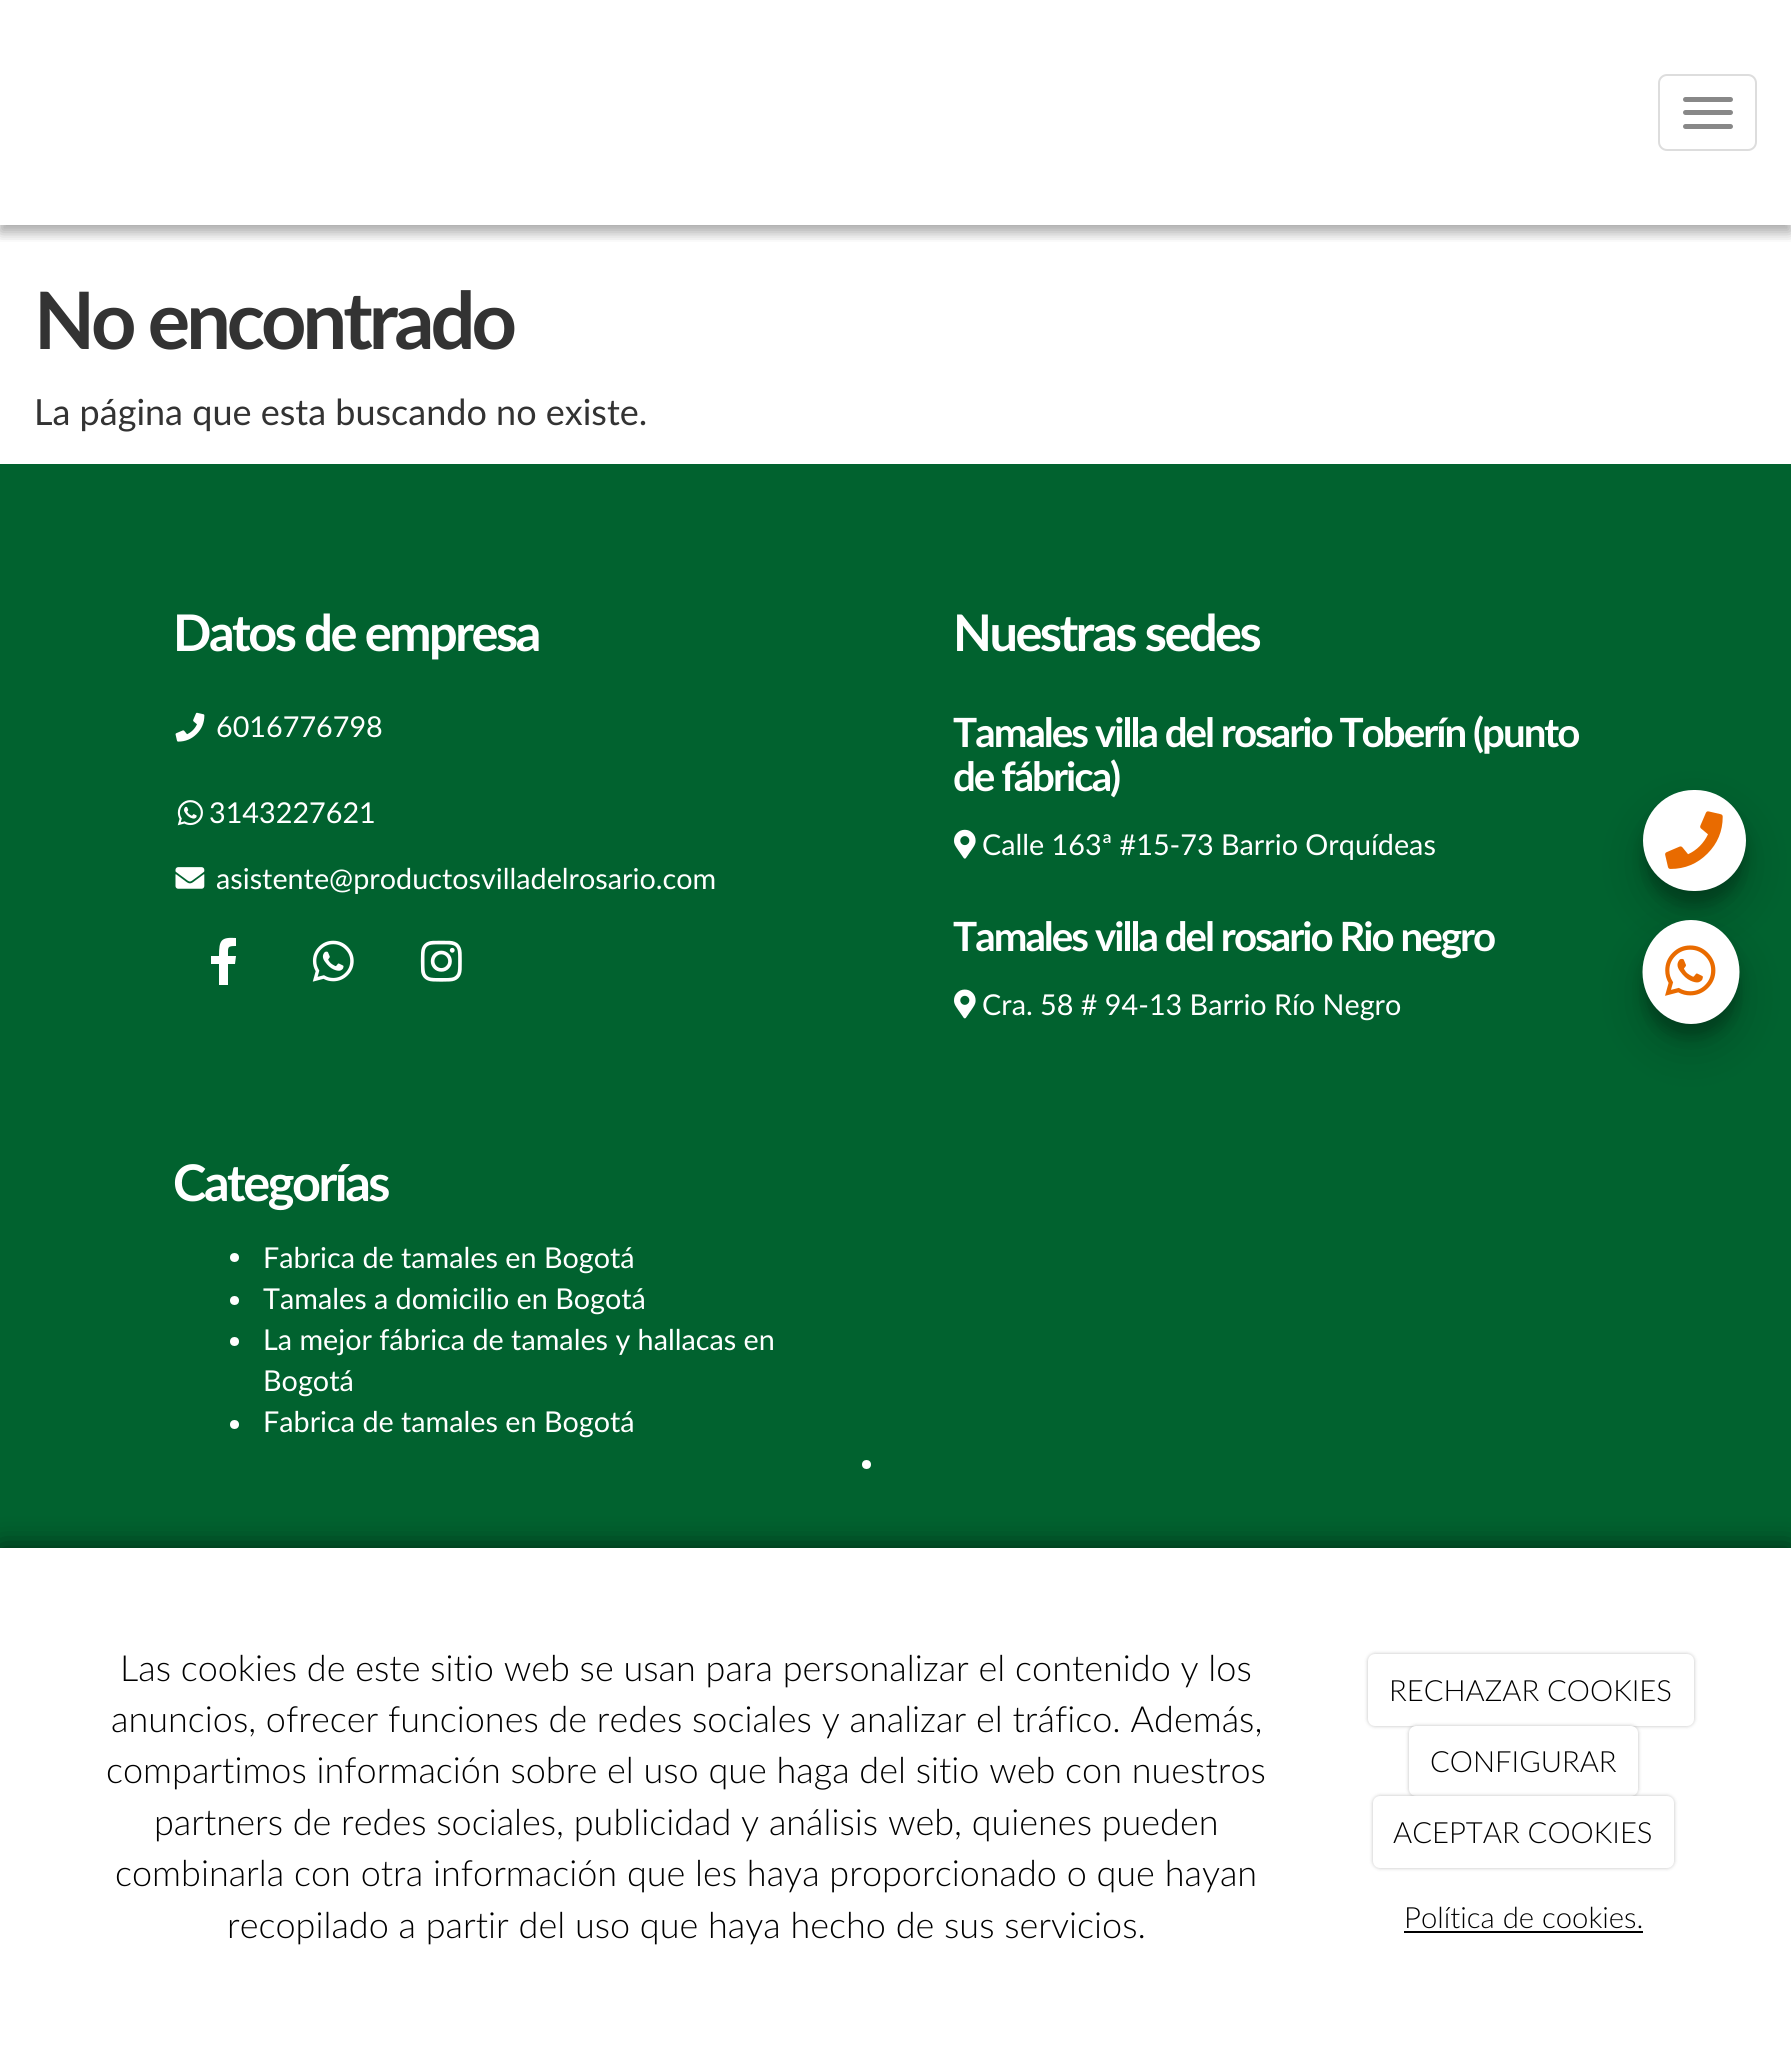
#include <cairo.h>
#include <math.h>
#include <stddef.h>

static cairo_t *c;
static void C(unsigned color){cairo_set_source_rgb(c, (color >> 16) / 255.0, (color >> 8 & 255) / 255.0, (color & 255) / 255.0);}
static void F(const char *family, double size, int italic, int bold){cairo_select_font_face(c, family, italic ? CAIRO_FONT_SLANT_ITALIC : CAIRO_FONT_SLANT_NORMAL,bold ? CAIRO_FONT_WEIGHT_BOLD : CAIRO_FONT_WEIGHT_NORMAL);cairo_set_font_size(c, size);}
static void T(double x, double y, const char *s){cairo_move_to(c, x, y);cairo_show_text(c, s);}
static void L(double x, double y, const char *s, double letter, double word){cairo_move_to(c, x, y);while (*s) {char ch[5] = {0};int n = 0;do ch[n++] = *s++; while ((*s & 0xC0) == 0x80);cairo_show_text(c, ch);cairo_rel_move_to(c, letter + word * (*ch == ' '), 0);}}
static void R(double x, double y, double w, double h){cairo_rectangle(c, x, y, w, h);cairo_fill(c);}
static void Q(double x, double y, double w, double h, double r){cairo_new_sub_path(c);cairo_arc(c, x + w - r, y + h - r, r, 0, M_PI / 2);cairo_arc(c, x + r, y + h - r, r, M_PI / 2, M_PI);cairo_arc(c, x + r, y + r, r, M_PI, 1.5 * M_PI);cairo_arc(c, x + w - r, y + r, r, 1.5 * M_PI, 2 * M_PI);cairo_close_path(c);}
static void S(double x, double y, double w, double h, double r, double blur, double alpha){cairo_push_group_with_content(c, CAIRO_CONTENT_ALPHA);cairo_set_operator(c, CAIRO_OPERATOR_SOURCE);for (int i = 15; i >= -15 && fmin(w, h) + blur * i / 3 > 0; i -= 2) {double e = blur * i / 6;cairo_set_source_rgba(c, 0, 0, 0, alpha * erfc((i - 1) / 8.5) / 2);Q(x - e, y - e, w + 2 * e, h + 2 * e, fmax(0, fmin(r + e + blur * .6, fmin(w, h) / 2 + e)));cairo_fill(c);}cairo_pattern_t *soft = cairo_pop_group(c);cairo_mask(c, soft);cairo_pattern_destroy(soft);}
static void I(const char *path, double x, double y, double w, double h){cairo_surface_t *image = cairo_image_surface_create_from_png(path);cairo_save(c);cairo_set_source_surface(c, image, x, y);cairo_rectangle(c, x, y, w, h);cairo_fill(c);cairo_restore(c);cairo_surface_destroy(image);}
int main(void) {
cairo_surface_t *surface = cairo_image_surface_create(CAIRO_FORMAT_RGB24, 1791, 2045);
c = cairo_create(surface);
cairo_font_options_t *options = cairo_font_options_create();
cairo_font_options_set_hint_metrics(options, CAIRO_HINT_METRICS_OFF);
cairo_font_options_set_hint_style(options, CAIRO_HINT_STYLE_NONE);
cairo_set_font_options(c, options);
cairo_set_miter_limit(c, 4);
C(0xffffff);
cairo_paint(c);
cairo_save(c);
cairo_rectangle(c,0,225,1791,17);
cairo_clip(c);
C(0x000000);
S(0,7,1791,225,0,7,.23);
cairo_restore(c);
cairo_save(c);
cairo_rectangle(c,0,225,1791,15);
cairo_clip(c);
C(0x000000);
S(0,7,1791,225,0,7,.16);
cairo_restore(c);
Q(1659,75,97,75,8);
C(0xdddddd);
cairo_stroke(c);
C(0x888888);
Q(1683,97,50,5,2.5);
cairo_fill(c);
Q(1683,110,50,5,2.5);
cairo_fill(c);
Q(1683,124,50,5,2.5);
cairo_fill(c);
F("Lato",79.25,0,1);
C(0x333333);
L(34,349,"No encontrado",-4,0);
F("Lato",36,0,0);
T(34,425,"La página que esta buscando no existe.");
C(0x01622f);
R(0,464,1791,1084);
F("Lato",50.5,0,1);
C(0xffffff);
L(173,651,"Datos de empresa",-2.5,0);
I("1.png",175,712,30,30);
F("Lato",28.75,0,0);
T(216,737,"6016776798");
I("2.png",177,800,26,26);
T(209,823,"3143227621");
I("3.png",175,867,30,22);
T(216,889,"asistente@productosvilladelrosario.com");
cairo_new_path(c);
cairo_move_to(c,235,964);
cairo_line_to(c,228,964);
cairo_line_to(c,228,985);
cairo_line_to(c,219,985);
cairo_line_to(c,219,964);
cairo_line_to(c,211,964);
cairo_line_to(c,211,956);
cairo_line_to(c,219,956);
cairo_curve_to(c,219,940,221,937,236,938);
cairo_line_to(c,236,946);
cairo_curve_to(c,227,946,228,947,228,956);
cairo_line_to(c,236,956);
cairo_close_path(c);
cairo_fill(c);
I("4.png",312,940,42,42);
I("5.png",420,940,42,42);
F("Lato",50.5,0,1);
L(953,651,"Nuestras sedes",-2.5,0);
F("Lato",40.3,0,1);
L(953,747,"Tamales villa del rosario Toberín (punto",-2,0);
L(953,791,"de fábrica)",-2,0);
I("6.png",954,829,22,30);
F("Lato",28.75,0,0);
T(982,855,"Calle 163ª #15-73 Barrio Orquídeas");
F("Lato",40.3,0,1);
L(953,951,"Tamales villa del rosario Rio negro",-2,0);
I("7.png",954,989,22,30);
F("Lato",28.75,0,0);
T(982,1015,"Cra. 58 # 94-13 Barrio Río Negro");
F("Lato",50.5,0,1);
L(173,1201,"Categorías",-2.5,0);
cairo_new_path(c);
cairo_arc(c,234.5,1257.5,4.5,0,2 * M_PI);
cairo_fill(c);
F("Lato",28.75,0,0);
T(263,1268,"Fabrica de tamales en Bogotá");
cairo_new_path(c);
cairo_arc(c,234.5,1300.5,4.5,0,2 * M_PI);
cairo_fill(c);
T(263,1309,"Tamales a domicilio en Bogotá");
cairo_new_path(c);
cairo_arc(c,234.5,1341.5,4.5,0,2 * M_PI);
cairo_fill(c);
T(263,1350,"La mejor fábrica de tamales y hallacas en");
T(263,1391,"Bogotá");
cairo_new_path(c);
cairo_arc(c,234.5,1424.5,4.5,0,2 * M_PI);
cairo_fill(c);
T(263,1432,"Fabrica de tamales en Bogotá");
cairo_new_path(c);
cairo_arc(c,866.5,1464.5,4.5,0,2 * M_PI);
cairo_fill(c);
C(0x000000);
S(1643,803,103,102,51,7,.23);
S(1643,812,103,102,51,22.5,.19);
C(0xffffff);
Q(1643,790,103,101,50.5);
cairo_fill(c);
I("8.png",1665,811,58,58);
C(0x000000);
S(1643,934,96,103,48,7,.23);
S(1643,943,96,103,48,22.5,.19);
C(0xffffff);
cairo_new_path(c);
cairo_move_to(c,1691,920);
cairo_curve_to(c,1718,920,1739.5,943.5,1739.5,972);
cairo_curve_to(c,1739.5,1000.5,1718,1024,1691,1024);
cairo_curve_to(c,1664,1024,1642.5,1000.5,1642.5,972);
cairo_curve_to(c,1642.5,943.5,1664,920,1691,920);
cairo_close_path(c);
cairo_fill(c);
I("9.png",1665,945,51,51);
C(0x000000);
S(0,1548,1791,497,0,14.5,.6);
C(0xffffff);
R(0,1548,1791,497);
F("Lato Light",36,0,0);
C(0x000000);
T(120,1681,"Las cookies de este sitio web se usan para personalizar el contenido y los");
T(111,1732,"anuncios, ofrecer funciones de redes sociales y analizar el tráfico. Además,");
T(106,1783,"compartimos información sobre el uso que haga del sitio web con nuestros");
T(154,1835,"partners de redes sociales, publicidad y análisis web, quienes pueden");
T(115,1886,"combinarla con otra información que les haya proporcionado o que hayan");
T(227,1938,"recopilado a partir del uso que haya hecho de sus servicios.");
C(0x000000);
S(1368,1654,326,72,7,2,.25);
C(0xffffff);
Q(1368,1654,326,72,7);
cairo_fill(c);
F("Lato Light",29.25,0,0);
C(0x000000);
T(1389,1701,"RECHAZAR COOKIES");
C(0x000000);
S(1409,1726,229,70,7,2,.25);
C(0xffffff);
Q(1409,1726,229,70,7);
cairo_fill(c);
C(0x000000);
T(1430,1772,"CONFIGURAR");
C(0x000000);
S(1373,1796,301,72,7,2,.25);
C(0xffffff);
Q(1373,1796,301,72,7);
cairo_fill(c);
C(0x000000);
T(1393,1843,"ACEPTAR COOKIES");
T(1404,1928,"Política de cookies.");
R(1404,1931,239,2);
cairo_surface_write_to_png(surface, "o.png");
cairo_font_options_destroy(options);
cairo_destroy(c);
cairo_surface_destroy(surface);
return 0;
}
